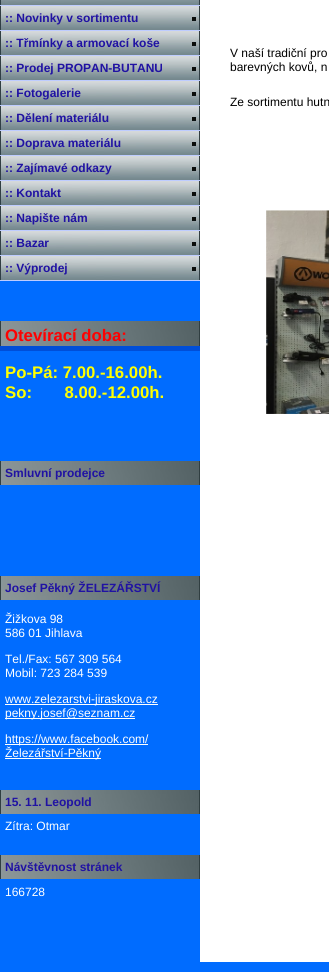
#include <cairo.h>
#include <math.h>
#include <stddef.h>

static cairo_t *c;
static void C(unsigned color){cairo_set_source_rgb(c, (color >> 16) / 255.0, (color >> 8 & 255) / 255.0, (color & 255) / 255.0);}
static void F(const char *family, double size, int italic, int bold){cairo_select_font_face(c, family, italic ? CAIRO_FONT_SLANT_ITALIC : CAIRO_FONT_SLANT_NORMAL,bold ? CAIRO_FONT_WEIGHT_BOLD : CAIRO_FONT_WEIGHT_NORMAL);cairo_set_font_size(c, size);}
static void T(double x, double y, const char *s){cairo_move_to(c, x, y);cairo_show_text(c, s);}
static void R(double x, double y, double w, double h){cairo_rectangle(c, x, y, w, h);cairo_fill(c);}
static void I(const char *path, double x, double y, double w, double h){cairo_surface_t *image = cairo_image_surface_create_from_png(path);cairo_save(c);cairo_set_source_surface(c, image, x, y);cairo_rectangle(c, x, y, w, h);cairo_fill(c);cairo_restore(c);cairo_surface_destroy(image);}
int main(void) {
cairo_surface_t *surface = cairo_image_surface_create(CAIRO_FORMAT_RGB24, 329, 972);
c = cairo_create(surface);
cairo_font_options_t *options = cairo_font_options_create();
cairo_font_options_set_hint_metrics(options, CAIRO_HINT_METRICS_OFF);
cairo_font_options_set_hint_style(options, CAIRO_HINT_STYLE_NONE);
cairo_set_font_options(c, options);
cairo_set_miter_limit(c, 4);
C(0xffffff);
cairo_paint(c);
I("1.png",200,0,129,962);
C(0x006cff);
R(0,281,200,681);
C(0xbeccff);
R(0,5,200,276);
I("2.png",0,0,200,5);
I("3.png",0,6,200,24);
F("Liberation Sans",12,0,1);
C(0x2012a3);
T(5,22,":: Novinky v sortimentu");
I("3.png",0,31,200,24);
T(5,47,":: Třmínky a armovací koše");
I("3.png",0,56,200,24);
T(5,72,":: Prodej PROPAN-BUTANU");
I("3.png",0,81,200,24);
T(5,97,":: Fotogalerie");
I("3.png",0,106,200,24);
T(5,122,":: Dělení materiálu");
I("3.png",0,131,200,24);
T(5,147,":: Doprava materiálu");
I("3.png",0,156,200,24);
T(5,172,":: Zajímavé odkazy");
I("3.png",0,181,200,24);
T(5,197,":: Kontakt");
I("3.png",0,206,200,24);
T(5,222,":: Napište nám");
I("3.png",0,231,200,24);
T(5,247,":: Bazar");
I("3.png",0,256,200,24);
T(5,272,":: Výprodej");
C(0x004ed8);
R(0,346,200,5);
I("4.png",0,321,200,25);
F("Liberation Sans",16.75,0,1);
C(0xff0000);
T(5,341,"Otevírací doba:");
C(0xffff00);
T(5,378,"Po-Pá: 7.00.-16.00h.");
T(5,398,"So:       8.00.-12.00h.");
I("5.png",0,461,200,24);
F("Liberation Sans",12,0,1);
C(0x2012a3);
T(5,477,"Smluvní prodejce");
I("5.png",0,576,200,24);
T(5,592,"Josef Pěkný ŽELEZÁŘSTVÍ");
F("Liberation Sans",12,0,0);
C(0xffffff);
T(5,623,"Žižkova 98");
T(5,637,"586 01 Jihlava");
T(5,663,"Tel./Fax: 567 309 564");
T(5,677,"Mobil: 723 284 539");
R(5,704,153,1);
T(5,703,"www.zelezarstvi-jiraskova.cz");
R(5,718,130,1);
T(5,717,"pekny.josef@seznam.cz");
R(5,744,143,1);
T(5,743,"https://www.facebook.com/");
R(5,758,96,1);
T(5,757,"Železářství-Pěkný");
I("5.png",0,790,200,24);
F("Liberation Sans",12,0,1);
C(0x2012a3);
T(5,806,"15. 11. Leopold");
F("Liberation Sans",12,0,0);
C(0xffffff);
T(5,830,"Zítra: Otmar");
I("5.png",0,855,200,24);
F("Liberation Sans",12,0,1);
C(0x2012a3);
T(5,871,"Návštěvnost stránek");
F("Liberation Sans",12,0,0);
C(0xffffff);
T(5,896,"166728");
C(0x000000);
T(230,57,"V naší tradiční pro");
T(230,71,"barevných kovů, n");
T(230,106,"Ze sortimentu hutn");
I("6.png",266,210,63,204);
C(0x006cff);
R(0,962,329,10);
cairo_surface_write_to_png(surface, "o.png");
cairo_font_options_destroy(options);
cairo_destroy(c);
cairo_surface_destroy(surface);
return 0;
}
